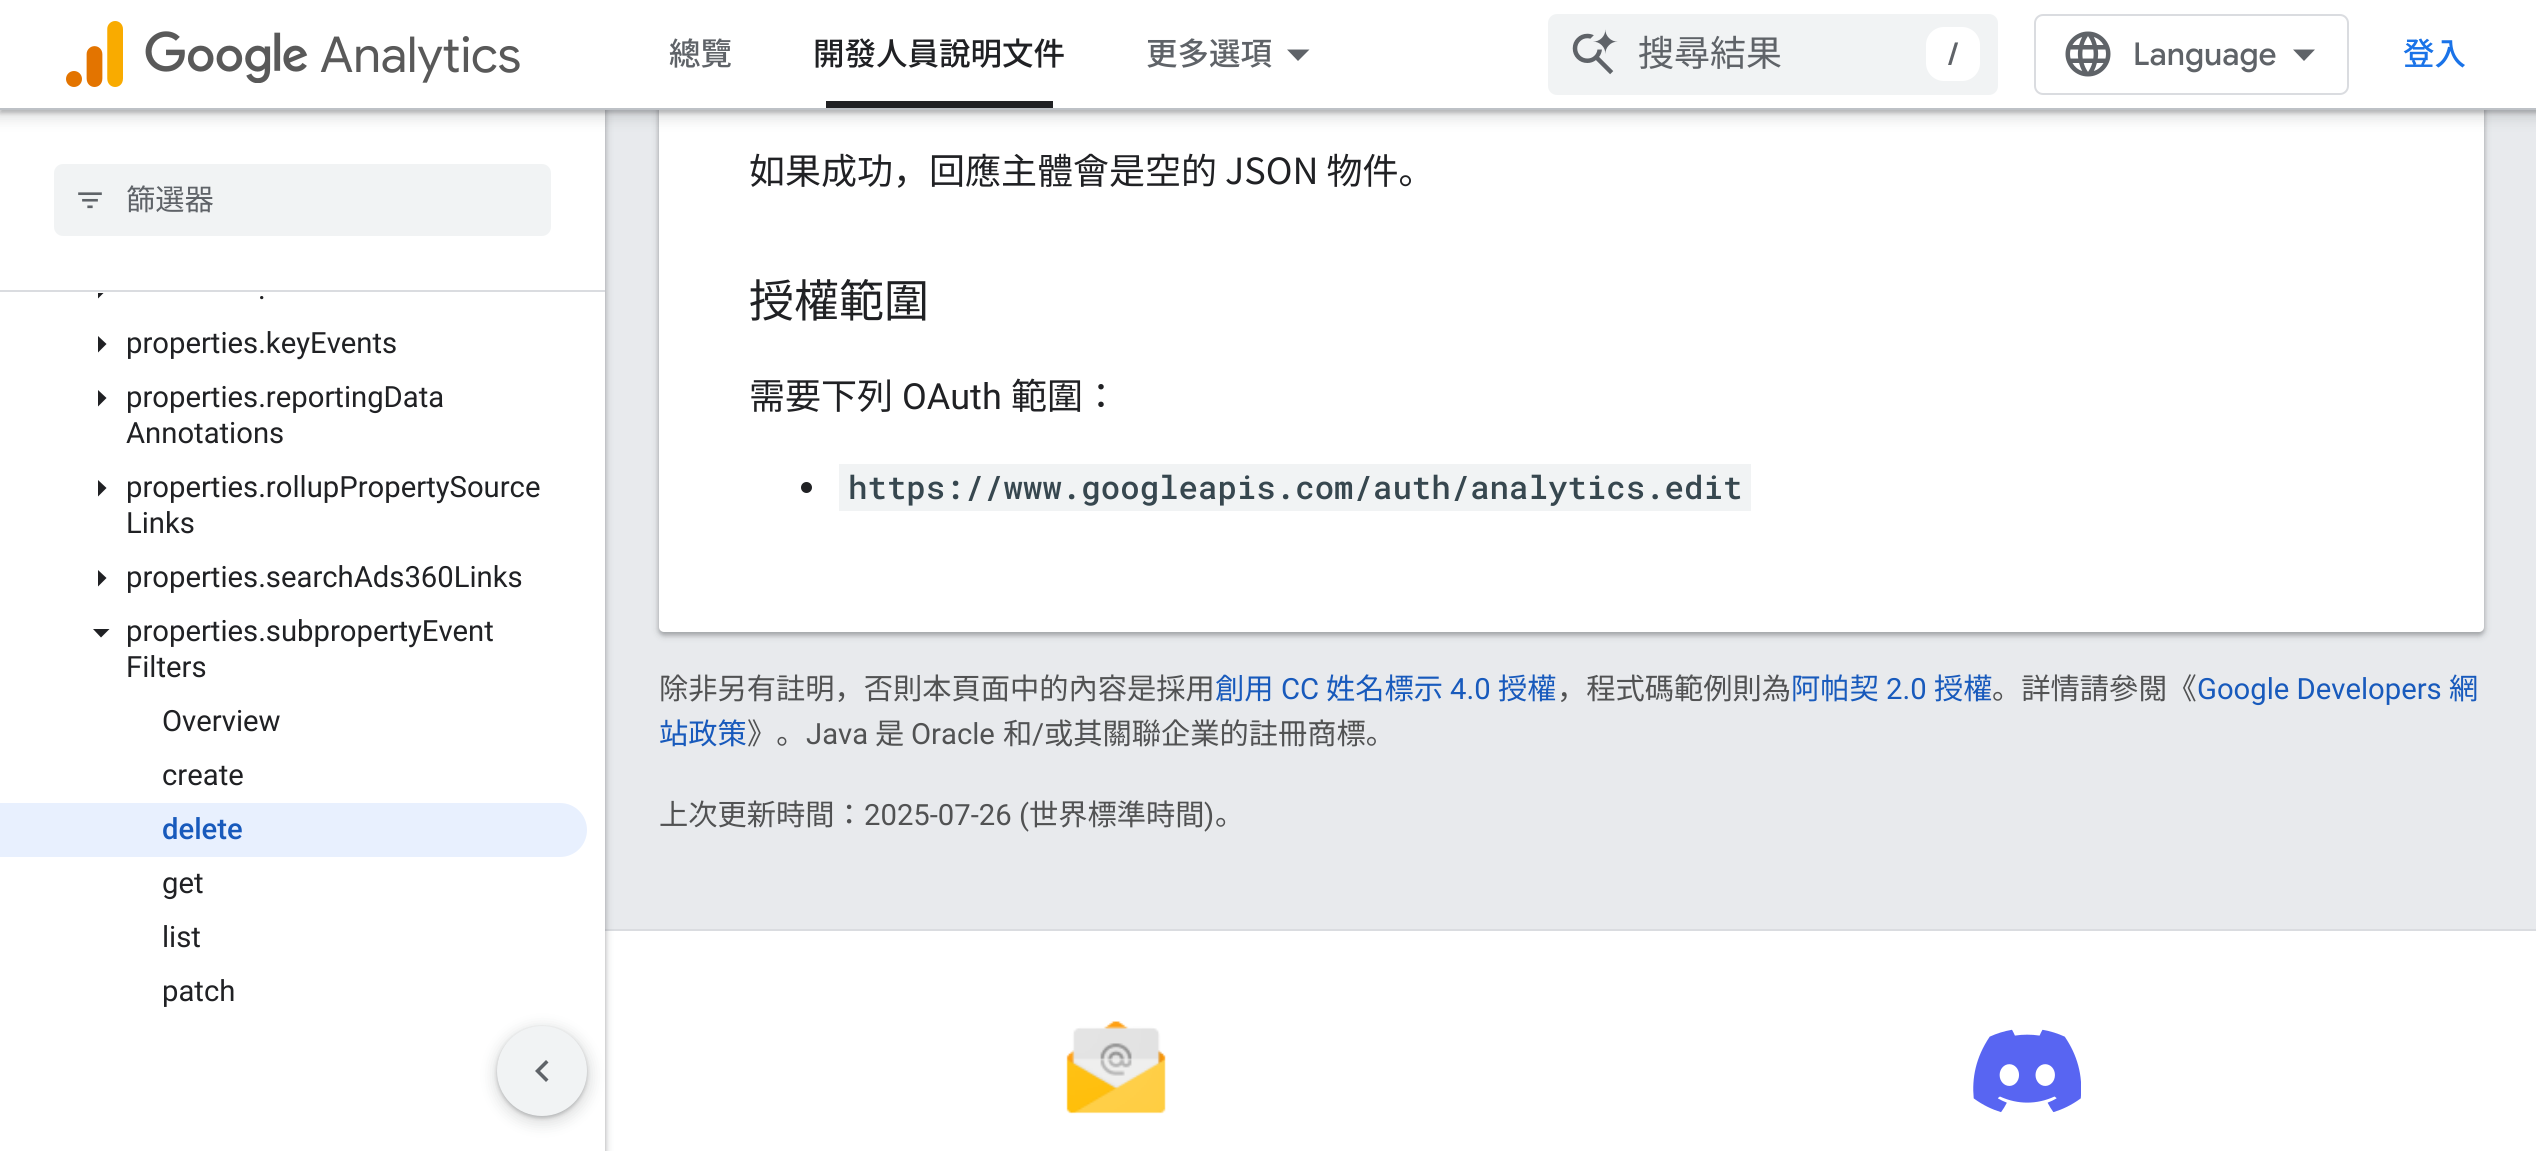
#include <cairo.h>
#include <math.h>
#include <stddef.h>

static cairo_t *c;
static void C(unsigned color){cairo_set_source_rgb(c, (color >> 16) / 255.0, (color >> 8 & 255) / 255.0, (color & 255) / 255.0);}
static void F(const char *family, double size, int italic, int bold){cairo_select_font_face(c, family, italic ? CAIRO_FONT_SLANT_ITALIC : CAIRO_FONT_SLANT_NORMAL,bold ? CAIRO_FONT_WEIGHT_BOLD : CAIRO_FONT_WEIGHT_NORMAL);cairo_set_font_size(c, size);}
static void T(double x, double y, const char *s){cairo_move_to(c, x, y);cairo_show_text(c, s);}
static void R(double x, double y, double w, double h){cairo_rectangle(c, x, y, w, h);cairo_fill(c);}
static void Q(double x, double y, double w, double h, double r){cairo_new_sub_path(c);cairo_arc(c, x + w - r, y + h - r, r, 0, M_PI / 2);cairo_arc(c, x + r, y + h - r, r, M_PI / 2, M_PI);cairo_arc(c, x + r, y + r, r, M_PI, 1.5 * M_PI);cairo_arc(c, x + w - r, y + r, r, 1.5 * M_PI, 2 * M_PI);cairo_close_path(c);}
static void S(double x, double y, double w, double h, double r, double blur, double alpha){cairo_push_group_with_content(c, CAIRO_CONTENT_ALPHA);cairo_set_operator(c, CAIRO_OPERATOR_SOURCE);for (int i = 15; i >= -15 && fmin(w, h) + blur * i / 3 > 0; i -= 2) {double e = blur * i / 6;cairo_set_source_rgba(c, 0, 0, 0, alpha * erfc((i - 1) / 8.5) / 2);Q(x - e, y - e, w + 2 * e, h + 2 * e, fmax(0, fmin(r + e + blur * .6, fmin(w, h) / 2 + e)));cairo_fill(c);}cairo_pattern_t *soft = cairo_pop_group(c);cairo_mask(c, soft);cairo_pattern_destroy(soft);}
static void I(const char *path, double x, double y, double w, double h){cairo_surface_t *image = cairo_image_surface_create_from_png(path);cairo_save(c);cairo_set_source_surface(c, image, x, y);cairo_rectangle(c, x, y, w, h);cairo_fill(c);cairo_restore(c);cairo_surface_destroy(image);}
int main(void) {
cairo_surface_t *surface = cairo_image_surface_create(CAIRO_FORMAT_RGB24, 2536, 1151);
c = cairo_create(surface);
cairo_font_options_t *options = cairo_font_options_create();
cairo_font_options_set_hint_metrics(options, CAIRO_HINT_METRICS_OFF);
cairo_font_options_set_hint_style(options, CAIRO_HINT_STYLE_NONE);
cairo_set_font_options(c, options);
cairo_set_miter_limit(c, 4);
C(0xe8eaed);
cairo_paint(c);
C(0xffffff);
R(605,931,1931,220);
C(0xdadce0);
R(605,929,1931,2);
C(0x3c4043);
S(-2,0,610,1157,0,3.5,.15);
S(0,2,605,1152,0,2,.3);
C(0xffffff);
R(0,293,605,858);
C(0x202124);
cairo_new_path(c);
cairo_move_to(c,98,298.5);
cairo_line_to(c,98,282);
cairo_line_to(c,106.5,290);
cairo_close_path(c);
cairo_fill(c);
C(0xffffff);
R(0,110,605,183);
C(0x3c4043);
S(657,-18,1829,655,7,3.5,.15);
S(659,-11,1825,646,5,2,.3);
C(0xffffff);
Q(659,-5,1825,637,5);
cairo_fill(c);
C(0x3c4043);
S(-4,-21,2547,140,0,7,.15);
S(0,-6,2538,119,0,2,.3);
C(0xffffff);
R(0,0,2536,108);
C(0xbdc1c6);
R(0,108,2536,2);
I("1.png",66,21,57,66);
I("2.png",145,31,163,52);
F("Google Sans",49.5,0,0);
C(0x595959);
T(320,72,"Analytics");
F("Noto Sans JP Medium",31.5,0,0);
C(0x5f6368);
T(669,65,"總覽");
C(0x202124);
T(813,65,"開發人員說明文件");
R(826,101,227,7);
C(0x5f6368);
T(1146,65,"更多選項");
cairo_new_path(c);
cairo_move_to(c,1287,49.5);
cairo_line_to(c,1309.5,49.5);
cairo_line_to(c,1298,61);
cairo_close_path(c);
cairo_fill(c);
C(0xf1f3f4);
Q(1548,14,450,81,9);
cairo_fill(c);
I("3.png",1572,29,46,46);
F("Noto Sans JP",36,0,0);
C(0x5f6368);
T(1638,66,"搜尋結果");
C(0xffffff);
Q(1926,27,54,54,18);
cairo_fill(c);
F("Google Sans Medium",31.5,0,0);
C(0x5f6368);
T(1948,65,"/");
Q(2035,15,313,79,8);
C(0xdadce0);
cairo_stroke(c);
I("4.png",2065,31,46,46);
C(0x5f6368);
T(2133,65,"Language");
cairo_new_path(c);
cairo_move_to(c,2304,61);
cairo_line_to(c,2293,49.5);
cairo_line_to(c,2315,49.5);
cairo_close_path(c);
cairo_fill(c);
F("Noto Sans JP Medium",31.5,0,0);
C(0x1a73e8);
T(2403,65,"登入");
C(0xdadce0);
R(0,290,605,2);
C(0xf1f3f4);
Q(54,164,497,72,9);
cairo_fill(c);
I("5.png",78,192,24,17);
F("Noto Sans JP",29.25,0,0);
C(0x5f6368);
T(126,210,"篩選器");
F("Roboto",29.25,0,0);
C(0x202124);
T(258,299,".");
cairo_new_path(c);
cairo_move_to(c,98,352.5);
cairo_line_to(c,98,336);
cairo_line_to(c,106.5,344);
cairo_close_path(c);
cairo_fill(c);
T(126,353,"properties.keyEvents");
cairo_new_path(c);
cairo_move_to(c,98,406.5);
cairo_line_to(c,98,390);
cairo_line_to(c,106.5,398);
cairo_close_path(c);
cairo_fill(c);
T(126,407,"properties.reportingData");
T(126,443,"Annotations");
cairo_new_path(c);
cairo_move_to(c,98,496.5);
cairo_line_to(c,98,480);
cairo_line_to(c,106.5,488);
cairo_close_path(c);
cairo_fill(c);
T(126,497,"properties.rollupPropertySource");
T(126,533,"Links");
cairo_new_path(c);
cairo_move_to(c,98,586.5);
cairo_line_to(c,98,570);
cairo_line_to(c,106.5,578);
cairo_close_path(c);
cairo_fill(c);
T(126,587,"properties.searchAds360Links");
cairo_new_path(c);
cairo_move_to(c,93,629);
cairo_line_to(c,109.5,629);
cairo_line_to(c,101,637.5);
cairo_close_path(c);
cairo_fill(c);
T(126,641,"properties.subpropertyEvent");
T(126,677,"Filters");
T(162,731,"Overview");
T(162,785,"create");
C(0xe8f0fe);
cairo_new_path(c);
cairo_move_to(c,0,803);
cairo_line_to(c,560,803);
cairo_curve_to(c,575,803,587,815,587,830);
cairo_curve_to(c,587,845,575,857,560,857);
cairo_line_to(c,0,857);
cairo_close_path(c);
cairo_fill(c);
F("Roboto Medium",29.25,0,0);
C(0x185abc);
T(162,839,"delete");
F("Roboto",29.25,0,0);
C(0x202124);
T(162,893,"get");
T(162,947,"list");
T(162,1001,"patch");
F("Noto Sans JP",36,0,0);
T(749,184,"如果成功，回應主體會是空的 JSON 物件。");
F("Noto Sans JP",45,0,0);
T(749,317,"授權範圍");
F("Noto Sans JP",36,0,0);
T(749,409,"需要下列");
F("Roboto",36,0,0);
T(902,409,"OAuth");
F("Noto Sans JP",36,0,0);
T(1011,409,"範圍：");
cairo_new_path(c);
cairo_arc(c,806.5,487.5,5.5,0,2 * M_PI);
cairo_fill(c);
C(0xf1f3f4);
R(839,464,912,47);
F("Roboto Mono Medium",32.4,0,0);
C(0x37474f);
T(848,499,"https://www.googleapis.com/auth/analytics.edit");
F("Noto Sans JP",29.25,0,0);
C(0x515253);
T(659,699,"除非另有註明，否則本頁面中的內容是採用");
C(0x185abc);
T(1215,699,"創用");
F("Roboto",29.25,0,0);
T(1281,699,"CC");
F("Noto Sans JP",29.25,0,0);
T(1326,699,"姓名標示");
F("Roboto",29.25,0,0);
T(1450,699,"4.0");
F("Noto Sans JP",29.25,0,0);
T(1498,699,"授權");
C(0x515253);
T(1557,699,"，程式碼範例則為");
C(0x185abc);
T(1791,699,"阿帕契");
F("Roboto",29.25,0,0);
T(1886,699,"2.0");
F("Noto Sans JP",29.25,0,0);
T(1934,699,"授權");
C(0x515253);
T(1992,699,"。詳情請參閱《");
F("Roboto",29.25,0,0);
C(0x185abc);
T(2197,699,"Google Developers");
F("Noto Sans JP",29.25,0,0);
T(2449,699,"網");
T(659,744,"站政策");
C(0x515253);
T(747,744,"》。");
F("Roboto",29.25,0,0);
T(806,744,"Java");
F("Noto Sans JP",29.25,0,0);
T(875,744,"是");
F("Roboto",29.25,0,0);
T(911,744,"Oracle");
F("Noto Sans JP",29.25,0,0);
T(1003,744,"和");
F("Roboto",29.25,0,0);
T(1032,744,"/");
F("Noto Sans JP",29.25,0,0);
T(1044,744,"或其關聯企業的註冊商標。");
T(659,825,"上次更新時間：");
F("Roboto",29.25,0,0);
T(864,825,"2025-07-26 (");
F("Noto Sans JP",29.25,0,0);
T(1029,825,"世界標準時間");
F("Roboto",29.25,0,0);
T(1204,825,")");
F("Noto Sans JP",29.25,0,0);
T(1215,825,"。");
I("6.png",1066,1021,100,93);
I("7.png",1973,1029,108,84);
C(0x3c4043);
S(493,1026,99,99,49.5,7,.15);
S(497,1028,90,90,45,2,.3);
C(0xf1f3f4);
cairo_arc(c,542,1071,45,0,2 * M_PI);
cairo_fill(c);
C(0x5f6368);
cairo_new_path(c);
cairo_move_to(c,548.5,1062.5);
cairo_line_to(c,540,1071);
cairo_line_to(c,548.5,1079.5);
cairo_line_to(c,546,1082);
cairo_line_to(c,535,1071);
cairo_line_to(c,546,1060);
cairo_close_path(c);
cairo_fill(c);
cairo_surface_write_to_png(surface, "o.png");
cairo_font_options_destroy(options);
cairo_destroy(c);
cairo_surface_destroy(surface);
return 0;
}
